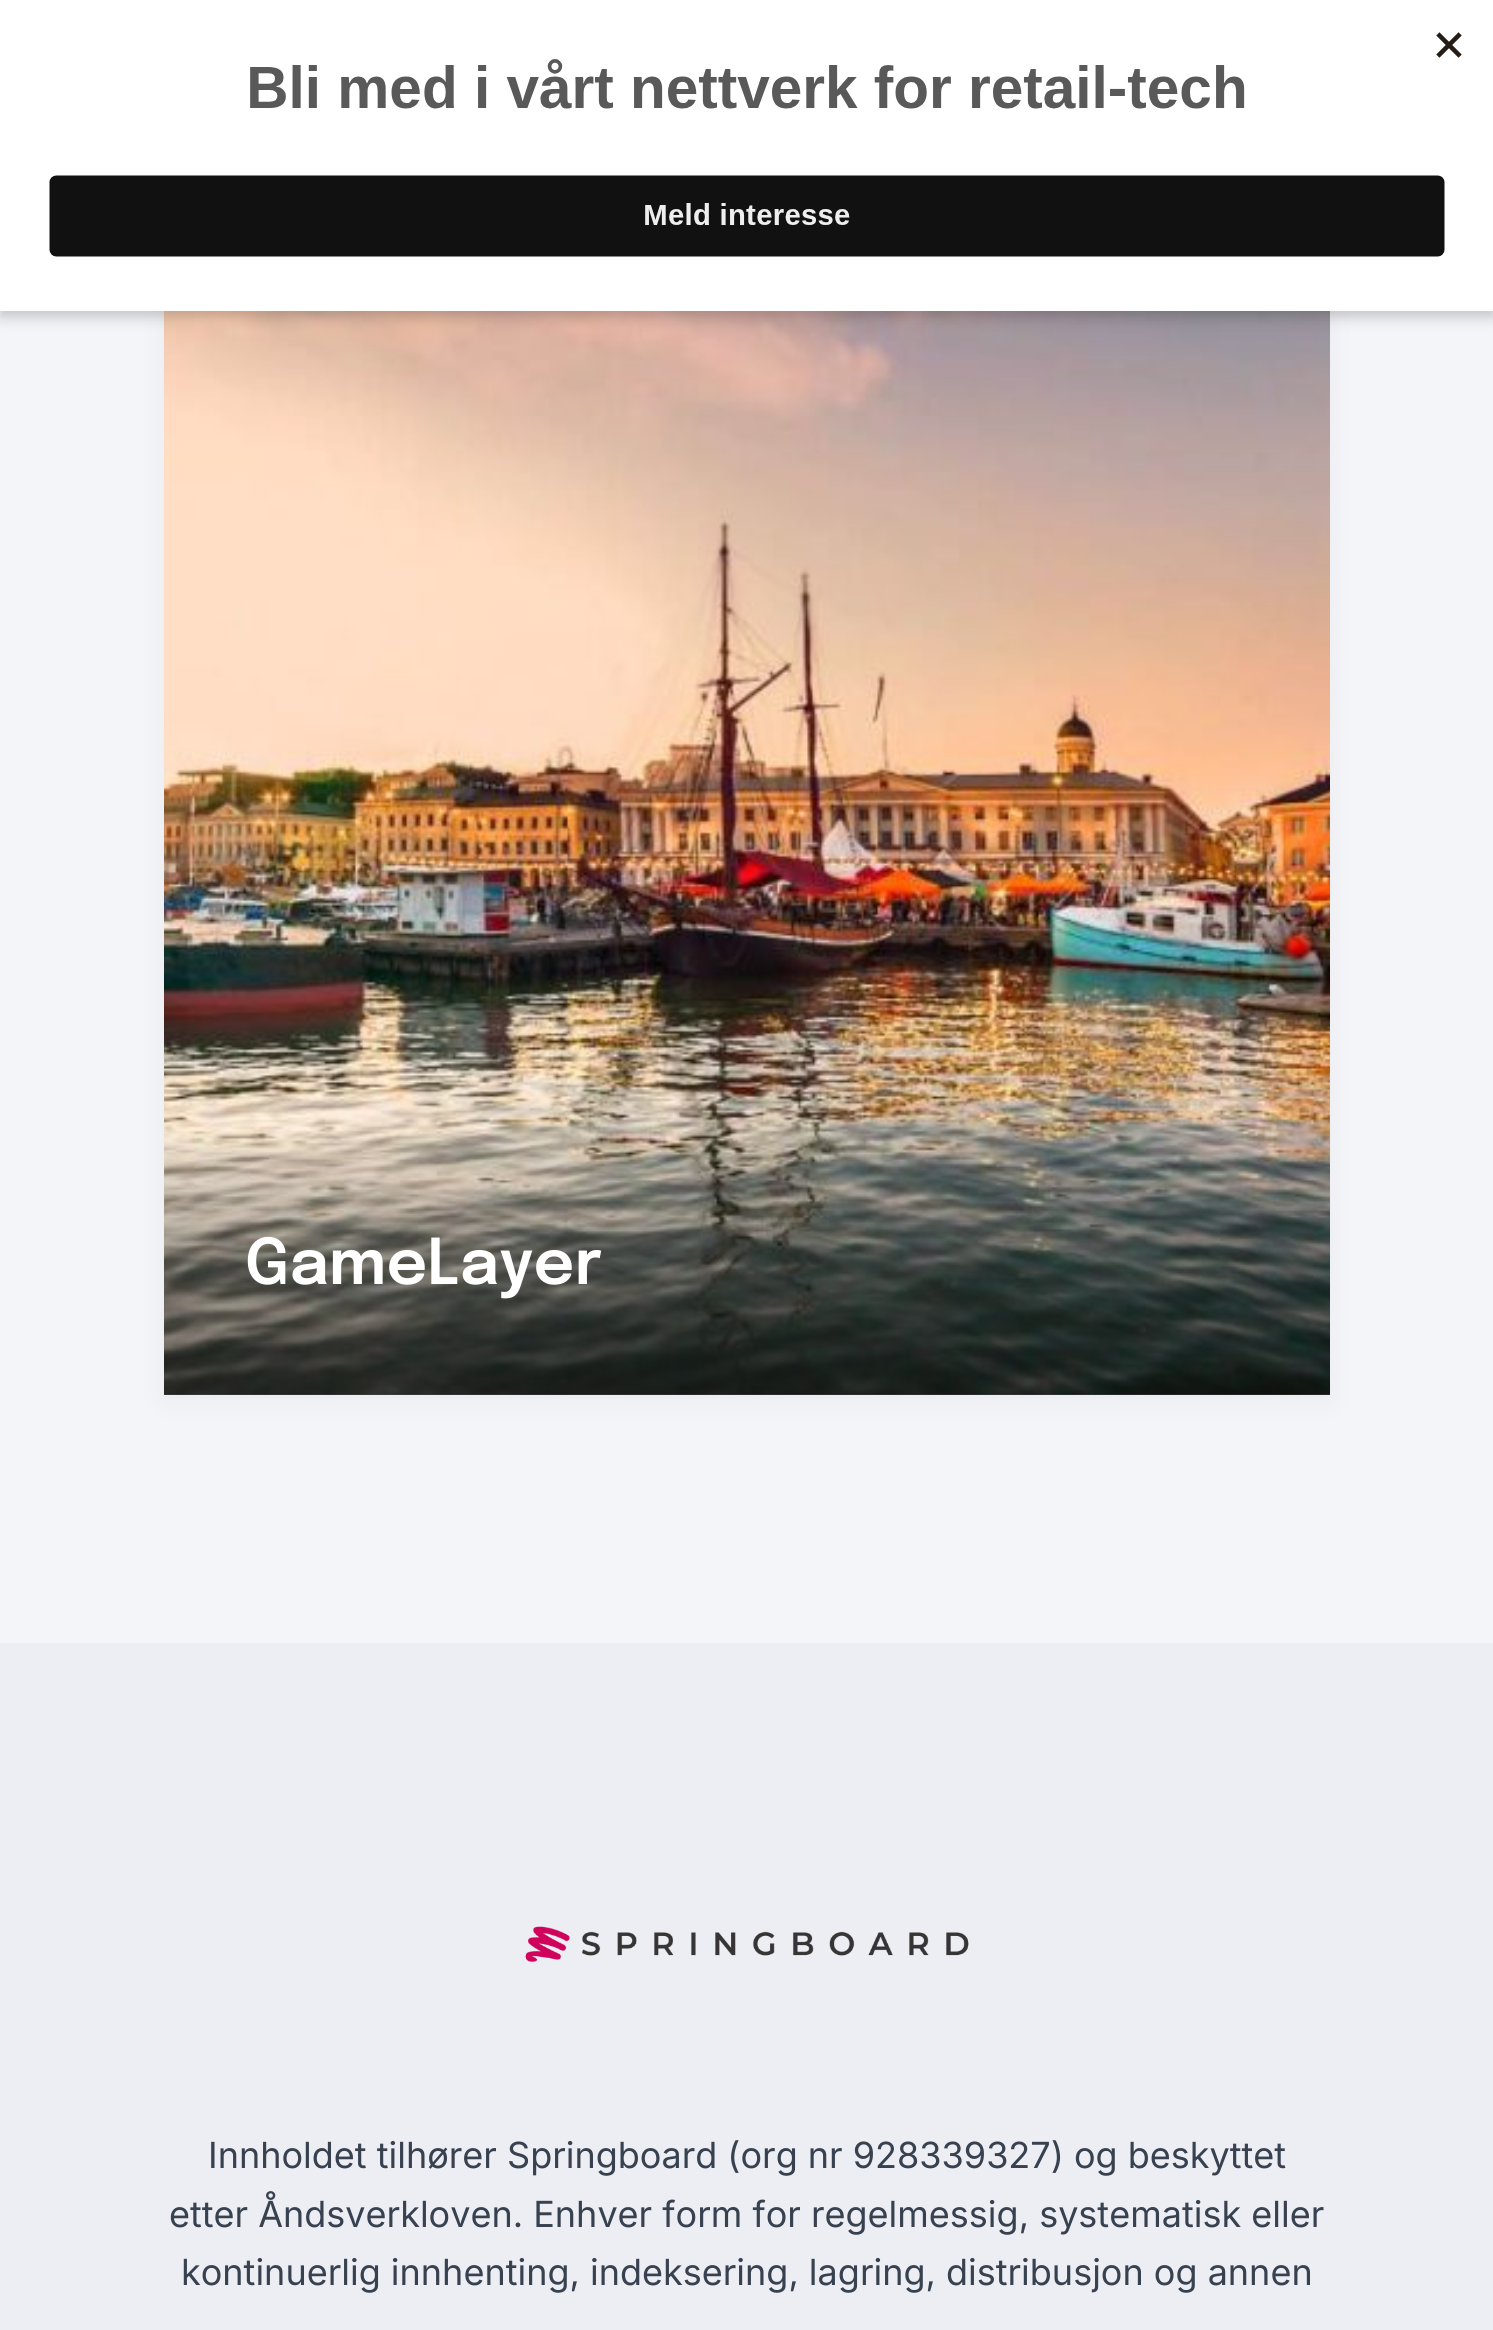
#include <cairo.h>
#include <math.h>
#include <stddef.h>

static cairo_t *c;
static void C(unsigned color){cairo_set_source_rgb(c, (color >> 16) / 255.0, (color >> 8 & 255) / 255.0, (color & 255) / 255.0);}
static void F(const char *family, double size, int italic, int bold){cairo_select_font_face(c, family, italic ? CAIRO_FONT_SLANT_ITALIC : CAIRO_FONT_SLANT_NORMAL,bold ? CAIRO_FONT_WEIGHT_BOLD : CAIRO_FONT_WEIGHT_NORMAL);cairo_set_font_size(c, size);}
static void T(double x, double y, const char *s){cairo_move_to(c, x, y);cairo_show_text(c, s);}
static void R(double x, double y, double w, double h){cairo_rectangle(c, x, y, w, h);cairo_fill(c);}
static void Q(double x, double y, double w, double h, double r){cairo_new_sub_path(c);cairo_arc(c, x + w - r, y + h - r, r, 0, M_PI / 2);cairo_arc(c, x + r, y + h - r, r, M_PI / 2, M_PI);cairo_arc(c, x + r, y + r, r, M_PI, 1.5 * M_PI);cairo_arc(c, x + w - r, y + r, r, 1.5 * M_PI, 2 * M_PI);cairo_close_path(c);}
static void S(double x, double y, double w, double h, double r, double blur, double alpha){cairo_push_group_with_content(c, CAIRO_CONTENT_ALPHA);cairo_set_operator(c, CAIRO_OPERATOR_SOURCE);for (int i = 15; i >= -15 && fmin(w, h) + blur * i / 3 > 0; i -= 2) {double e = blur * i / 6;cairo_set_source_rgba(c, 0, 0, 0, alpha * erfc((i - 1) / 8.5) / 2);Q(x - e, y - e, w + 2 * e, h + 2 * e, fmax(0, fmin(r + e + blur * .6, fmin(w, h) / 2 + e)));cairo_fill(c);}cairo_pattern_t *soft = cairo_pop_group(c);cairo_mask(c, soft);cairo_pattern_destroy(soft);}
static void I(const char *path, double x, double y, double w, double h){cairo_surface_t *image = cairo_image_surface_create_from_png(path);cairo_save(c);cairo_set_source_surface(c, image, x, y);cairo_rectangle(c, x, y, w, h);cairo_fill(c);cairo_restore(c);cairo_surface_destroy(image);}
int main(void) {
cairo_surface_t *surface = cairo_image_surface_create(CAIRO_FORMAT_RGB24, 1493, 2330);
c = cairo_create(surface);
cairo_font_options_t *options = cairo_font_options_create();
cairo_font_options_set_hint_metrics(options, CAIRO_HINT_METRICS_OFF);
cairo_font_options_set_hint_style(options, CAIRO_HINT_STYLE_NONE);
cairo_set_font_options(c, options);
cairo_set_miter_limit(c, 4);
cairo_pattern_t *gradient;
C(0xf4f5f8);
cairo_paint(c);
C(0xbabfce);
S(164,234,1166,1166,0,11,.2);
I("2.png",164,311,1166,1084);
C(0x000000);
S(0,7,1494,310,0,7,.2);
C(0xffffff);
R(0,0,1493,311);
I("1.png",49,32,1413,225);
gradient = cairo_pattern_create_linear(747,1395,747,1121);
cairo_pattern_add_color_stop_rgba(gradient,0,0,0,0,.6);
cairo_pattern_add_color_stop_rgba(gradient,1,0,0,0,0);
cairo_set_source(c,gradient);
cairo_pattern_destroy(gradient);
R(164,1131,1166,264);
F("Epilogue SemiBold",63,0,0);
C(0xffffff);
T(245,1284,"GameLayer");
C(0xeceef3);
R(0,1643,1493,687);
I("3.png",525,1926,444,36);
F("Inter",36,0,0);
C(0x384150);
T(208,2168,"Innholdet tilhører Springboard (org nr 928339327) og beskyttet");
T(169,2227,"etter Åndsverkloven. Enhver form for regelmessig, systematisk eller");
T(181,2285,"kontinuerlig innhenting, indeksering, lagring, distribusjon og annen");
cairo_surface_write_to_png(surface, "o.png");
cairo_font_options_destroy(options);
cairo_destroy(c);
cairo_surface_destroy(surface);
return 0;
}
